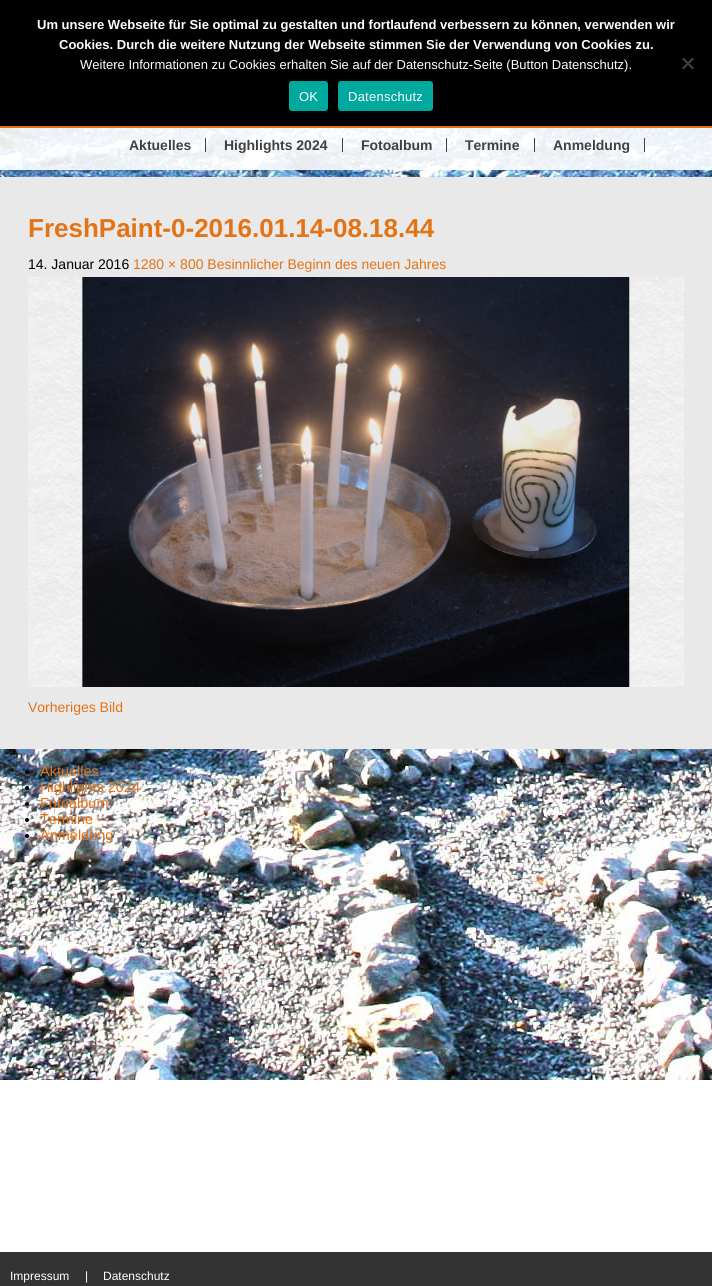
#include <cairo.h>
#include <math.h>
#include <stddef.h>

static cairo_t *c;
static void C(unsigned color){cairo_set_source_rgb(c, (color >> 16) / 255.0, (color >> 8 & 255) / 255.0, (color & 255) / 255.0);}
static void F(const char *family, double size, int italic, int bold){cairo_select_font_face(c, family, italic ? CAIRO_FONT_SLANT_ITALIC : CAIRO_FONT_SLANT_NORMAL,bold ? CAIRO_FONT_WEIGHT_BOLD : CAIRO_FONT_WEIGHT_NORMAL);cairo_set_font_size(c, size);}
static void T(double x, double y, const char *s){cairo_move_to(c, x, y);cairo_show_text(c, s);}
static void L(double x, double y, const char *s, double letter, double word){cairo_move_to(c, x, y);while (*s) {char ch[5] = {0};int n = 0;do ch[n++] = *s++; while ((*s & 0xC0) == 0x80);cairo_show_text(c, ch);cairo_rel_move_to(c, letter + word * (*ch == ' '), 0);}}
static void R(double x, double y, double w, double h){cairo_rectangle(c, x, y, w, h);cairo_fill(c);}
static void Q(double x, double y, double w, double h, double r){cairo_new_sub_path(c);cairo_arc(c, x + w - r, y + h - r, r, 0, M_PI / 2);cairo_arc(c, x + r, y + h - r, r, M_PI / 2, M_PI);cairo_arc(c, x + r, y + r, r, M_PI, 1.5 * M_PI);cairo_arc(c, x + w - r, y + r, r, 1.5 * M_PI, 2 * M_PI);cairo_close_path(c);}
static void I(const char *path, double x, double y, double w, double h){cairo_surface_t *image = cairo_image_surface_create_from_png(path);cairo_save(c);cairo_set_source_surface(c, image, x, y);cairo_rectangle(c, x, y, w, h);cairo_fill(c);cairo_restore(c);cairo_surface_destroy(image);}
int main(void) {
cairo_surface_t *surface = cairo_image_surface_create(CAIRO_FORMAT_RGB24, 712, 1286);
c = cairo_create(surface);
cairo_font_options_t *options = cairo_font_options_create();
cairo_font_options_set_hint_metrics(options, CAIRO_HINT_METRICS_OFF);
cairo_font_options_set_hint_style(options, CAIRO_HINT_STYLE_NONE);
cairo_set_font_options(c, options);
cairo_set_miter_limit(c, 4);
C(0xffffff);
cairo_paint(c);
I("1.png",0,128,712,952);
cairo_set_source_rgba(c,1,1,1,0.9);
R(0,128,712,42);
C(0x000000);
R(0,0,712,126);
F("Liberation Sans",13,0,1);
C(0xffffff);
T(37,29,"Um unsere Webseite für Sie optimal zu gestalten und fortlaufend verbessern zu können, verwenden wir");
T(59,49,"Cookies. Durch die weitere Nutzung der Webseite stimmen Sie der Verwendung von Cookies zu.");
F("Liberation Sans",13,0,0);
T(80,69,"Weitere Informationen zu Cookies erhalten Sie auf der Datenschutz-Seite (Button Datenschutz).");
C(0x404040);
cairo_new_path(c);
cairo_move_to(c,692.5,57.5);
cairo_line_to(c,694,59);
cairo_line_to(c,683.5,69.5);
cairo_line_to(c,682,68);
cairo_close_path(c);
cairo_fill(c);
cairo_new_path(c);
cairo_move_to(c,682,59);
cairo_line_to(c,683.5,57.5);
cairo_line_to(c,694,68);
cairo_line_to(c,692.5,69.5);
cairo_close_path(c);
cairo_fill(c);
C(0x00a99d);
Q(289,81,39,30,3);
cairo_fill(c);
C(0xffffff);
L(299,101,"OK",.25,0);
C(0x00a99d);
Q(338,81,95,30,3);
cairo_fill(c);
C(0xffffff);
L(348,101,"Datenschutz",.25,0);
C(0x333333);
R(0,1252,712,34);
F("Liberation Sans",12,0,0);
C(0xffffff);
T(10,1280,"Impressum");
T(85,1280,"|");
T(103,1280,"Datenschutz");
C(0x414141);
R(205,138,1,14);
F("Liberation Sans",14,0,1);
T(129,150,"Aktuelles");
R(342,138,1,14);
T(224,150,"Highlights 2024");
R(446,138,1,14);
T(361,150,"Fotoalbum");
R(534,138,1,14);
T(465,150,"Termine");
R(644,138,1,14);
T(553,150,"Anmeldung");
C(0xe9e9e9);
R(0,177,712,572);
F("Liberation Sans",26,0,1);
C(0xe47315);
T(28,237,"FreshPaint-0-2016.01.14-08.18.44");
F("Liberation Sans",14,0,0);
C(0x000000);
T(28,269,"14. Januar 2016");
C(0xe47315);
T(133,269,"1280 × 800 Besinnlicher Beginn des neuen Jahres");
I("2.png",28,277,656,410);
T(28,712,"Vorheriges Bild");
C(0x000000);
cairo_new_path(c);
cairo_arc(c,27,772,2,0,2 * M_PI);
cairo_fill(c);
F("Liberation Sans",14.5,0,0);
C(0xe47315);
T(40,776,"Aktuelles");
C(0x000000);
cairo_new_path(c);
cairo_arc(c,27,788,2,0,2 * M_PI);
cairo_fill(c);
C(0xe47315);
T(40,792,"Highlights 2024");
C(0x000000);
cairo_new_path(c);
cairo_arc(c,27,804,2,0,2 * M_PI);
cairo_fill(c);
C(0xe47315);
T(40,808,"Fotoalbum");
C(0x000000);
cairo_new_path(c);
cairo_arc(c,27,820,2,0,2 * M_PI);
cairo_fill(c);
C(0xe47315);
T(40,824,"Termine");
C(0x000000);
cairo_new_path(c);
cairo_arc(c,27,836,2,0,2 * M_PI);
cairo_fill(c);
C(0xe47315);
T(40,840,"Anmeldung");
R(0,126,712,2);
cairo_surface_write_to_png(surface, "o.png");
cairo_font_options_destroy(options);
cairo_destroy(c);
cairo_surface_destroy(surface);
return 0;
}
